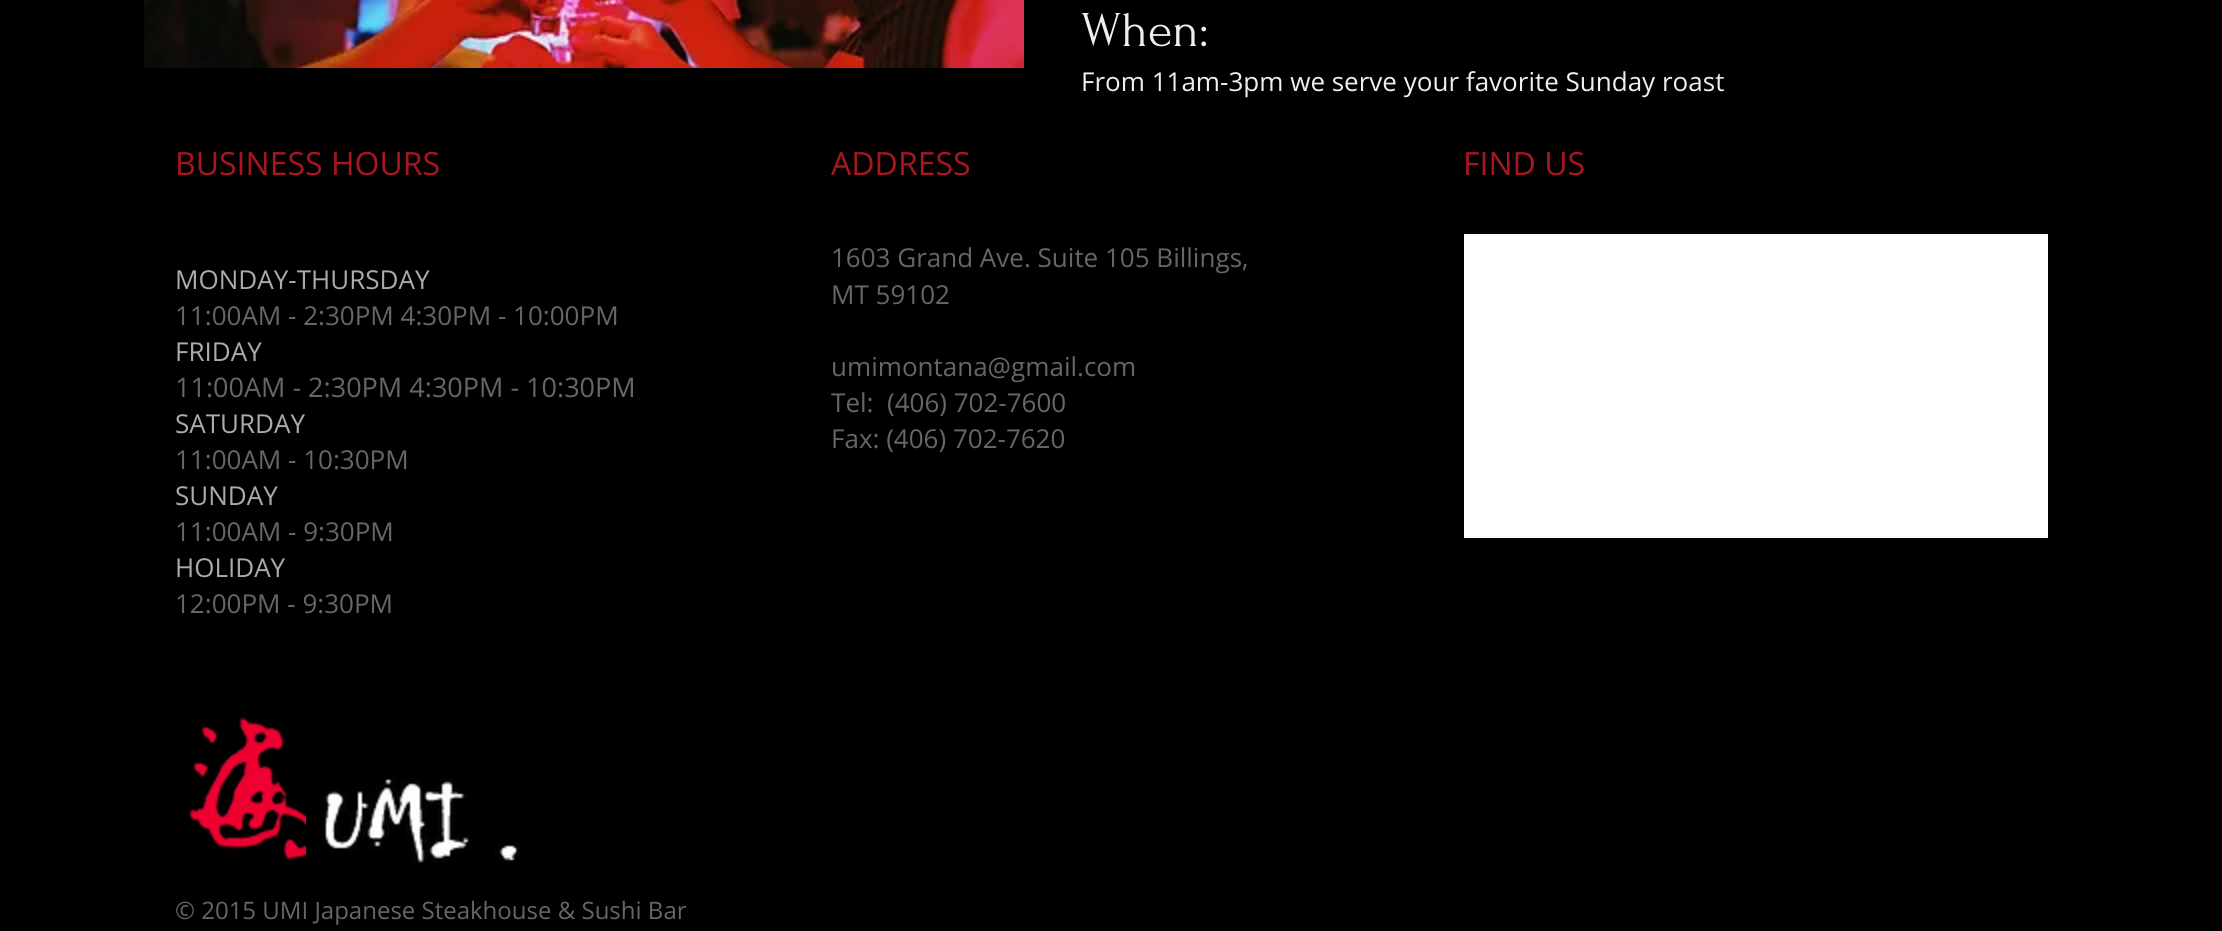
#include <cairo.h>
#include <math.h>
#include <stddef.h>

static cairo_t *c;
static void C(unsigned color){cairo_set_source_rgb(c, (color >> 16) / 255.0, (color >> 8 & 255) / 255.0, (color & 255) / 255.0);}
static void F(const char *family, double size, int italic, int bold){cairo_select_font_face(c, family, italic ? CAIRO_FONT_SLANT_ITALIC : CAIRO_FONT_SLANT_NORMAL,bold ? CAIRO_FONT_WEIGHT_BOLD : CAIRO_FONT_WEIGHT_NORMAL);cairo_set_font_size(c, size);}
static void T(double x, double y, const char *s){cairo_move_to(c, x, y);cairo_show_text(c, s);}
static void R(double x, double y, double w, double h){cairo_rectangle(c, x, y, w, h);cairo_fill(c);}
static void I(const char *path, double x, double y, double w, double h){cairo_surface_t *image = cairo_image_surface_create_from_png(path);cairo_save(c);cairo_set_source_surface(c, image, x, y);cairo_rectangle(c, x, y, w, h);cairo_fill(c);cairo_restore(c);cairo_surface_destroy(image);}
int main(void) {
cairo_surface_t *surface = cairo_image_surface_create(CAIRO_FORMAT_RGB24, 2222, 931);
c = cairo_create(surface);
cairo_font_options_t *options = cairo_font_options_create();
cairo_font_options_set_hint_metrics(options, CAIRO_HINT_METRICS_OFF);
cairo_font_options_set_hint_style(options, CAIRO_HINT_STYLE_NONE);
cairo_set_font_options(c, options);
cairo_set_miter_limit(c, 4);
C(0x000000);
cairo_paint(c);
I("1.png",144,0,880,68);
F("Forum",50,0,0);
C(0xefefef);
T(1081,46,"When:");
F("Open Sans",26,0,0);
T(1081,91,"From 11am-3pm we serve your favorite Sunday roast");
F("Open Sans",32,0,0);
C(0xaa1620);
T(175,175,"BUSINESS HOURS");
T(831,175,"ADDRESS");
T(1463,175,"FIND US");
F("Open Sans",26,0,0);
C(0xababab);
T(175,289,"MONDAY-THURSDAY");
C(0x666666);
T(175,325,"11:00AM - 2:30PM 4:30PM - 10:00PM");
C(0xababab);
T(175,361,"FRIDAY");
F("Open Sans",27,0,0);
C(0x666666);
T(175,397,"11:00AM - 2:30PM 4:30PM - 10:30PM");
F("Open Sans",26,0,0);
C(0xababab);
T(175,433,"SATURDAY");
C(0x666666);
T(175,469,"11:00AM - 10:30PM");
C(0xababab);
T(175,505,"SUNDAY");
C(0x666666);
T(175,541,"11:00AM - 9:30PM");
C(0xababab);
T(175,577,"HOLIDAY");
C(0x666666);
T(175,613,"12:00PM - 9:30PM");
T(831,267,"1603 Grand Ave. Suite 105 Billings,");
T(831,304,"MT 59102");
T(831,376,"umimontana@gmail.com");
T(831,412,"Tel:  (406) 702-7600");
T(831,448,"Fax: (406) 702-7620");
C(0xffffff);
R(1464,234,584,304);
I("2.png",189,717,117,144);
I("3.png",306,778,214,85);
F("Open Sans",24,0,0);
C(0x666666);
T(175,919,"© 2015 UMI Japanese Steakhouse & Sushi Bar");
cairo_surface_write_to_png(surface, "o.png");
cairo_font_options_destroy(options);
cairo_destroy(c);
cairo_surface_destroy(surface);
return 0;
}
